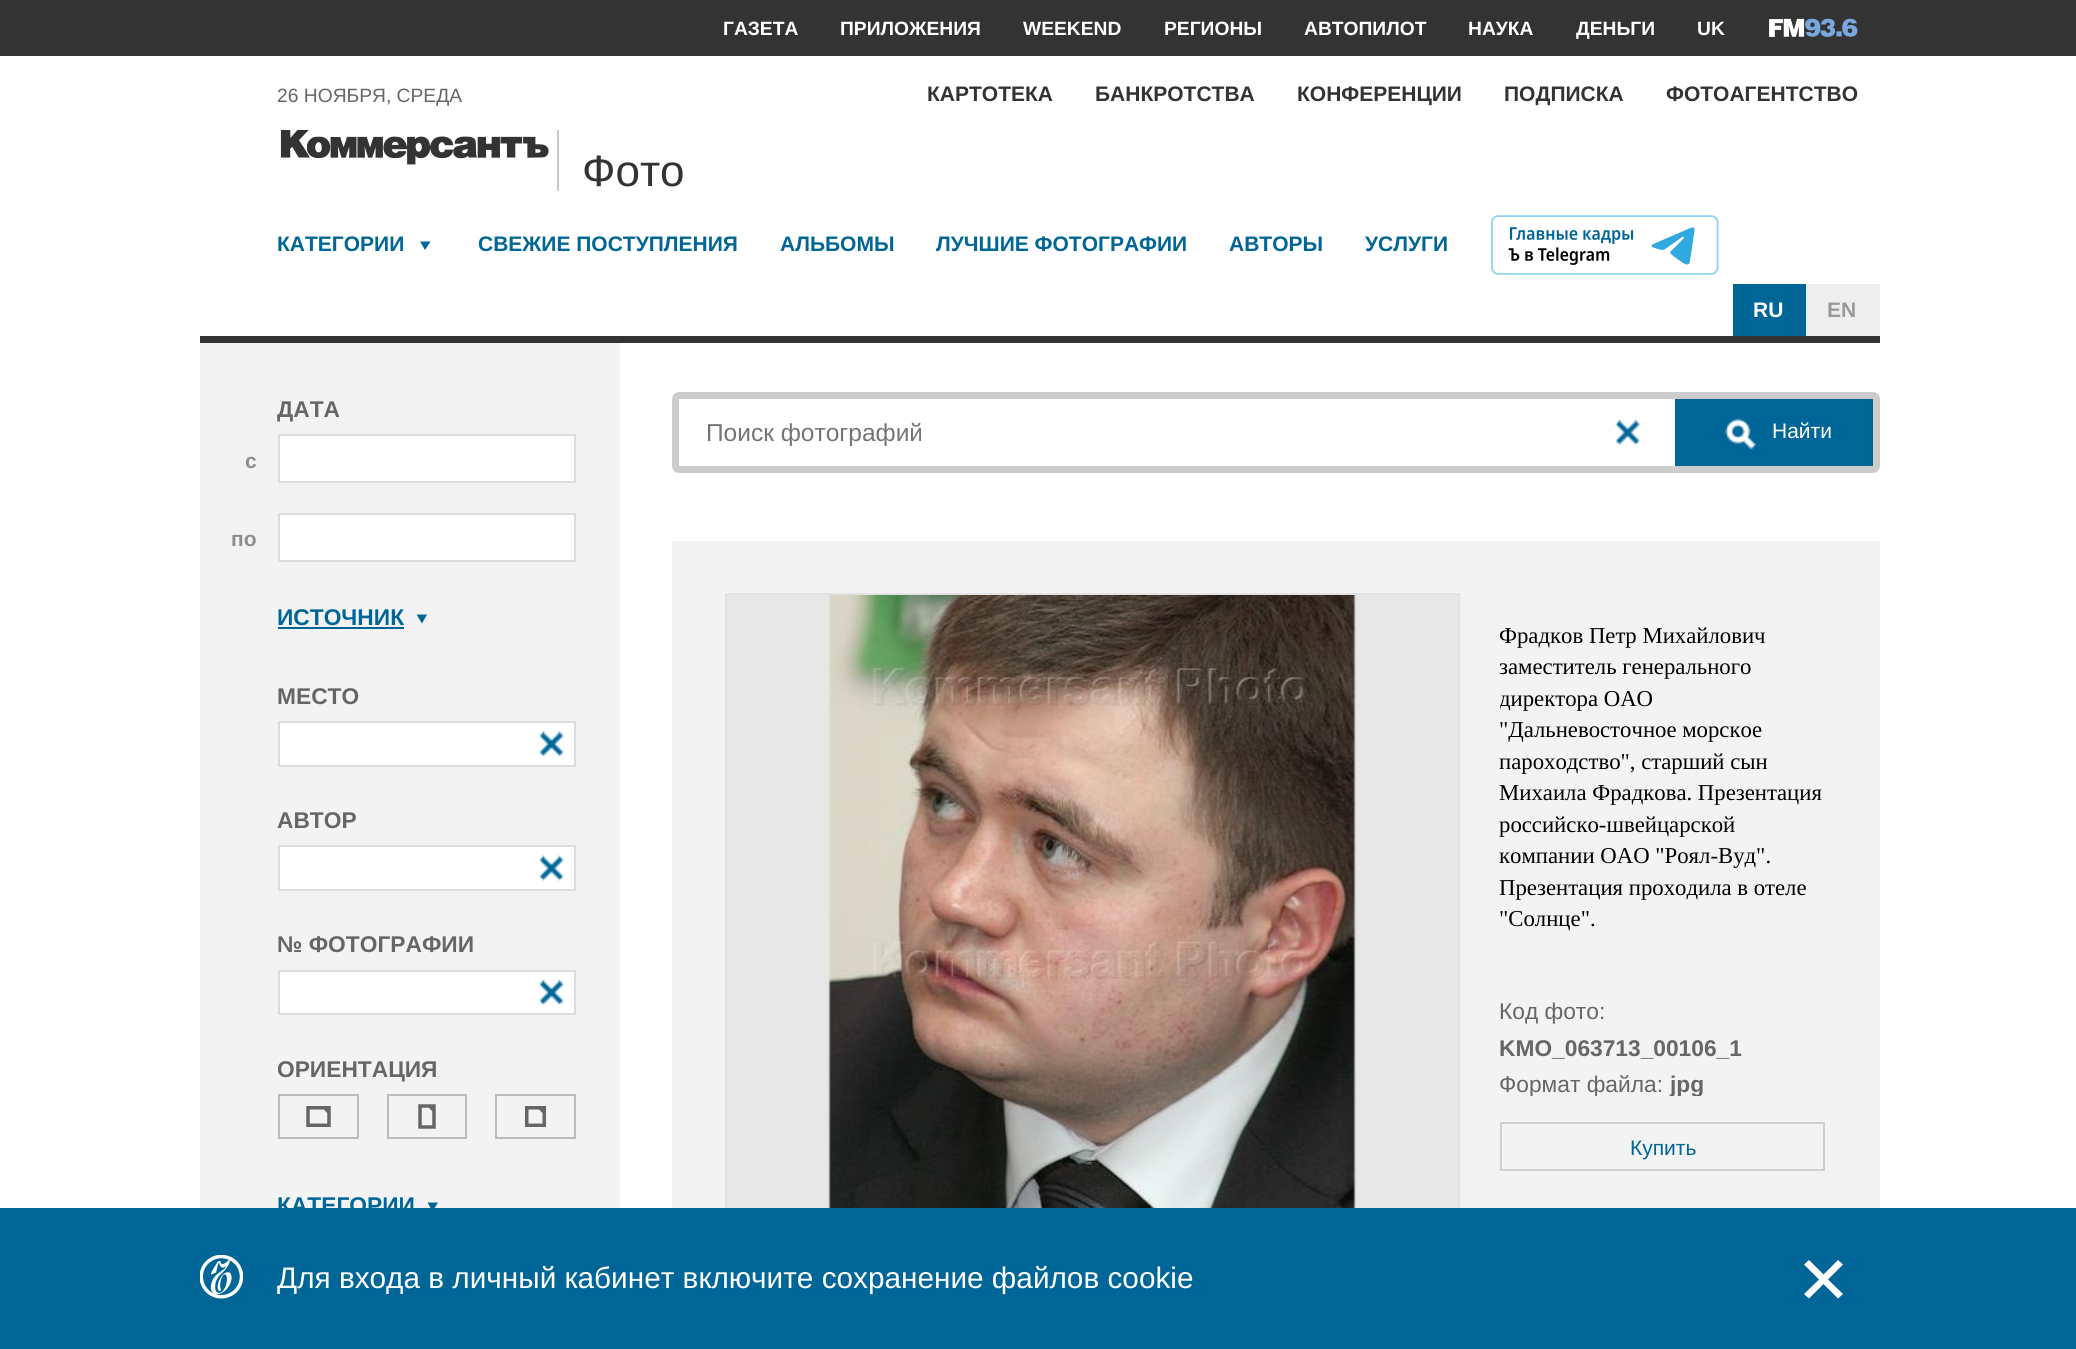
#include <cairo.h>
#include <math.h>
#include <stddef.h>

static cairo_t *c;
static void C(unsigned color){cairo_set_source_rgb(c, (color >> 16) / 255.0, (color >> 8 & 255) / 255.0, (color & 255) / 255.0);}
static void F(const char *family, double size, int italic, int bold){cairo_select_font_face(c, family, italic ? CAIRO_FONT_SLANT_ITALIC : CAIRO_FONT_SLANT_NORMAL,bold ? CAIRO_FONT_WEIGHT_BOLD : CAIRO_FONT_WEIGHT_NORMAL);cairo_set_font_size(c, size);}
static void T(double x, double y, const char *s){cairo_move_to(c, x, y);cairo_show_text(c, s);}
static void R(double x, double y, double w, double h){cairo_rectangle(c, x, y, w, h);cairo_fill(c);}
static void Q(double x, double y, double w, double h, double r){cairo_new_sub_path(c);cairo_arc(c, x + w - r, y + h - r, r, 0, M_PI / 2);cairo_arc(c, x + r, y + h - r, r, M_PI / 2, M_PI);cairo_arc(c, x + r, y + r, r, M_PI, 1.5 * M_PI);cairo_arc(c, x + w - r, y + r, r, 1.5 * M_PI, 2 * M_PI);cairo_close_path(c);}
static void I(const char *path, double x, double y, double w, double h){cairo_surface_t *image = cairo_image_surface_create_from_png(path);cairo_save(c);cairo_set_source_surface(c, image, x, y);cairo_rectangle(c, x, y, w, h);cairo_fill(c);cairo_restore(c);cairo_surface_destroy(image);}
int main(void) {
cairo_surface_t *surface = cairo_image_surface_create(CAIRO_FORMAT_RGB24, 2076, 1349);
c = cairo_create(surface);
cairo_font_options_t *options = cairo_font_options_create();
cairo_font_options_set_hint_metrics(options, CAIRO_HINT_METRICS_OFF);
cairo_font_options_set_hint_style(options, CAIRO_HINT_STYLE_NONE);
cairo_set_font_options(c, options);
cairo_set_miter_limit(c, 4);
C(0xffffff);
cairo_paint(c);
C(0x333333);
R(0,0,2076,56);
F("Liberation Sans",19.25,0,1);
C(0xffffff);
T(723,35,"ГАЗЕТА");
T(840,35,"ПРИЛОЖЕНИЯ");
T(1023,35,"WEEKEND");
T(1164,35,"РЕГИОНЫ");
T(1304,35,"АВТОПИЛОТ");
T(1468,35,"НАУКА");
T(1576,35,"ДЕНЬГИ");
T(1697,35,"UK");
I("1.png",1769,18,89,19);
F("Liberation Sans",19.25,0,0);
C(0x666666);
T(277,102,"26 НОЯБРЯ, СРЕДА");
F("Liberation Sans",21,0,1);
C(0x333333);
T(927,101,"КАРТОТЕКА");
T(1095,101,"БАНКРОТСТВА");
T(1297,101,"КОНФЕРЕНЦИИ");
T(1504,101,"ПОДПИСКА");
T(1666,101,"ФОТОАГЕНТСТВО");
I("2.png",280,130,269,35);
C(0xc9c9c9);
R(557,130,2,61);
F("Liberation Sans",44,0,0);
C(0x333333);
T(582,186,"Фото");
F("Liberation Sans",21,0,1);
C(0x006697);
T(277,251,"КАТЕГОРИИ");
cairo_new_path(c);
cairo_move_to(c,420,241.5);
cairo_line_to(c,430.5,241.5);
cairo_line_to(c,425,250);
cairo_close_path(c);
cairo_fill(c);
T(478,251,"СВЕЖИЕ ПОСТУПЛЕНИЯ");
T(780,251,"АЛЬБОМЫ");
T(936,251,"ЛУЧШИЕ ФОТОГРАФИИ");
T(1229,251,"АВТОРЫ");
T(1365,251,"УСЛУГИ");
I("3.png",1491,215,228,60);
R(1733,284,73,52);
C(0xffffff);
T(1753,317,"RU");
C(0xeeeeee);
R(1806,284,74,52);
C(0x999999);
T(1827,317,"EN");
C(0x333333);
R(200,336,1680,7);
C(0xf3f3f3);
R(200,343,420,865);
F("Liberation Sans",22.75,0,1);
C(0x666666);
T(277,417,"ДАТА");
F("Liberation Sans",21,0,1);
C(0x8c8c8c);
T(245,468,"с");
C(0xffffff);
cairo_rectangle(c,279,435,296,47);
cairo_fill_preserve(c);
C(0xdcdcdc);
cairo_stroke(c);
C(0x8c8c8c);
T(231,546,"по");
C(0xffffff);
cairo_rectangle(c,279,514,296,47);
cairo_fill_preserve(c);
C(0xdcdcdc);
cairo_stroke(c);
F("Liberation Sans",22.75,0,1);
C(0x006697);
T(277,625,"ИСТОЧНИК");
R(278,627,126,2);
cairo_new_path(c);
cairo_move_to(c,416.5,614.5);
cairo_line_to(c,427,614.5);
cairo_line_to(c,422,623.5);
cairo_close_path(c);
cairo_fill(c);
C(0x666666);
T(277,704,"МЕСТО");
C(0xffffff);
cairo_rectangle(c,279,722,296,44);
cairo_fill_preserve(c);
C(0xdcdcdc);
cairo_stroke(c);
I("4.png",538,731,26,26);
C(0x666666);
T(277,828,"АВТОР");
C(0xffffff);
cairo_rectangle(c,279,846,296,44);
cairo_fill_preserve(c);
C(0xdcdcdc);
cairo_stroke(c);
I("5.png",538,855,26,26);
C(0x666666);
T(277,952,"№ ФОТОГРАФИИ");
C(0xffffff);
cairo_rectangle(c,279,971,296,43);
cairo_fill_preserve(c);
C(0xdcdcdc);
cairo_stroke(c);
I("6.png",538,979,26,26);
C(0x666666);
T(277,1077,"ОРИЕНТАЦИЯ");
cairo_rectangle(c,279,1095,79,43);
C(0xbbbbbb);
cairo_stroke(c);
I("7.png",306,1106,25,21);
cairo_rectangle(c,388,1095,78,43);
cairo_stroke(c);
I("8.png",418,1104,18,25);
cairo_rectangle(c,496,1095,79,43);
cairo_stroke(c);
I("9.png",525,1106,21,21);
C(0x006697);
T(277,1213,"КАТЕГОРИИ");
cairo_new_path(c);
cairo_move_to(c,427.5,1202.5);
cairo_line_to(c,438,1202.5);
cairo_line_to(c,432.5,1211.5);
cairo_close_path(c);
cairo_fill(c);
Q(675.5,395.5,1201,74,3.5);
C(0xcccccc);
cairo_set_line_width(c,7);
cairo_stroke(c);
cairo_save(c);
cairo_rectangle(c,707,418,877,28);
cairo_clip(c);
F("Liberation Sans",24.5,0,0);
C(0x757575);
T(706,441,"Поиск фотографий");
cairo_restore(c);
I("10.png",1615,419,26,26);
C(0x006697);
R(1675,399,198,67);
I("11.png",1725,418,31,32);
F("Liberation Sans",21,0,0);
C(0xffffff);
T(1772,438,"Найти");
C(0xf3f3f3);
R(672,541,1208,667);
C(0xe7e7e7);
R(727,595,731,613);
cairo_rectangle(c,726,594,733,733);
C(0xe2e2e2);
cairo_set_line_width(c,2);
cairo_stroke(c);
I("12.png",828,595,528,613);
F("Liberation Serif",22.75,0,0);
C(0x000000);
T(1499,643,"Фрадков Петр Михайлович");
T(1499,674,"заместитель генерального");
cairo_save(c);
cairo_rectangle(c,1500,620,325,476);
cairo_clip(c);
T(1499,706,"директора ОАО");
cairo_restore(c);
T(1499,737,"\"Дальневосточное морское");
T(1499,769,"пароходство\", старший сын");
T(1499,800,"Михаила Фрадкова. Презентация");
T(1499,832,"российско-швейцарской");
T(1499,863,"компании ОАО \"Роял-Вуд\".");
T(1499,895,"Презентация проходила в отеле");
T(1499,926,"\"Солнце\".");
F("Liberation Sans",22.75,0,0);
C(0x666666);
T(1499,1019,"Код фото:");
F("Liberation Sans",22.75,0,1);
T(1499,1056,"KMO_063713_00106_1");
cairo_save(c);
cairo_rectangle(c,1500,620,325,476);
cairo_clip(c);
F("Liberation Sans",22.75,0,0);
T(1499,1092,"Формат файла:");
F("Liberation Sans",22.75,0,1);
T(1670,1092,"jpg");
cairo_restore(c);
cairo_rectangle(c,1501,1123,323,47);
C(0xcfcfcf);
cairo_stroke(c);
F("Liberation Sans",21,0,0);
C(0x006697);
T(1630,1155,"Купить");
R(0,1208,2076,141);
I("13.png",200,1255,43,44);
F("Liberation Sans",29.75,0,0);
C(0xffffff);
T(277,1288,"Для входа в личный кабинет включите сохранение файлов cookie");
cairo_new_path(c);
cairo_move_to(c,1843,1264.5);
cairo_line_to(c,1838,1260);
cairo_line_to(c,1823.5,1274.5);
cairo_line_to(c,1809,1260);
cairo_line_to(c,1804,1264.5);
cairo_line_to(c,1819,1279.5);
cairo_line_to(c,1804,1294);
cairo_line_to(c,1809,1298.5);
cairo_line_to(c,1823.5,1284);
cairo_line_to(c,1838,1298.5);
cairo_line_to(c,1843,1294);
cairo_line_to(c,1828,1279.5);
cairo_close_path(c);
cairo_fill(c);
cairo_surface_write_to_png(surface, "o.png");
cairo_font_options_destroy(options);
cairo_destroy(c);
cairo_surface_destroy(surface);
return 0;
}
